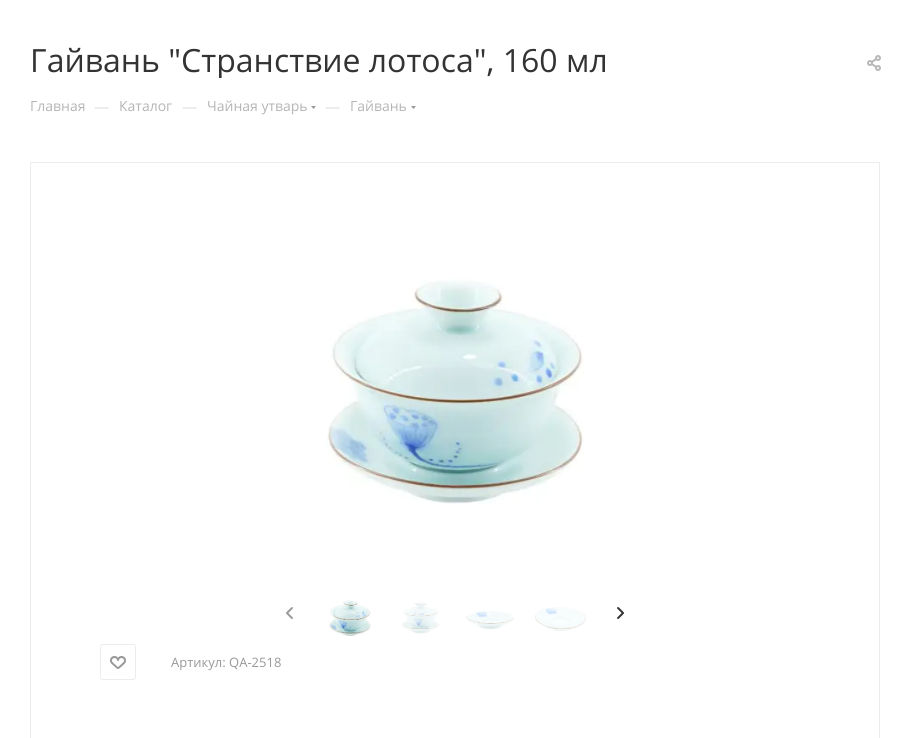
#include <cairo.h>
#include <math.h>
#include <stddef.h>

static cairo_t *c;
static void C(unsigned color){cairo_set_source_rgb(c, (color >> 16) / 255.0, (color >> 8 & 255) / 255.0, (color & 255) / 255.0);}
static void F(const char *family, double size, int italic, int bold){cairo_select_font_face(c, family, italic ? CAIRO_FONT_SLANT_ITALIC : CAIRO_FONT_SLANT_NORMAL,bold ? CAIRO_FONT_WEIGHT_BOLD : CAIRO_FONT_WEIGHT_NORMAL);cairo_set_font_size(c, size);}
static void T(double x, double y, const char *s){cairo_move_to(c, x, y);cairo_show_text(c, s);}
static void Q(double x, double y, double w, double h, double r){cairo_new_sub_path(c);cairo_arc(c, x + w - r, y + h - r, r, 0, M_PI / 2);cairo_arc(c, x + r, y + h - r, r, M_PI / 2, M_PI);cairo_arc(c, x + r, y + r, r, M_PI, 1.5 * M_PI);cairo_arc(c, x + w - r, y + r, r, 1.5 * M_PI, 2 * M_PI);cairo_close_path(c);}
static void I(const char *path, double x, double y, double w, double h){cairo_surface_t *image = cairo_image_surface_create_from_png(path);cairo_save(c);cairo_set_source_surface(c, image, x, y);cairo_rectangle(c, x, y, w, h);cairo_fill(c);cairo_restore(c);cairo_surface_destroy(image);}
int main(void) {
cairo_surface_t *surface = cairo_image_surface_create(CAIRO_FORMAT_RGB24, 910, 738);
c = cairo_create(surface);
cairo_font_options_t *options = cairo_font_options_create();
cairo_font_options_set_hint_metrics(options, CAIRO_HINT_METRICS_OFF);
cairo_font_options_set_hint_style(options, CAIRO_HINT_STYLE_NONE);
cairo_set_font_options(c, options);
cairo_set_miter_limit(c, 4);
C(0xffffff);
cairo_paint(c);
cairo_save(c);
cairo_rectangle(c,30,42,804,36);
cairo_clip(c);
F("Open Sans",32,0,0);
C(0x333333);
T(30,72,"Гайвань \"Странствие лотоса\", 160 мл");
cairo_restore(c);
I("1.png",867,55,14,16);
F("Open Sans",14,0,0);
C(0xb6b5b5);
T(30,111,"Главная");
F("Open Sans",15,0,0);
C(0xdddddd);
T(94,112,"—");
F("Open Sans",14,0,0);
C(0xb6b5b5);
T(119,111,"Каталог");
F("Open Sans",15,0,0);
C(0xdddddd);
T(182,112,"—");
F("Open Sans",14,0,0);
C(0xb6b5b5);
T(207,111,"Чайная утварь");
C(0x999999);
cairo_set_fill_rule(c,CAIRO_FILL_RULE_EVEN_ODD);
cairo_new_path(c);
cairo_move_to(c,311,106);
cairo_line_to(c,316,106);
cairo_line_to(c,313.5,109);
cairo_close_path(c);
cairo_fill(c);
F("Open Sans",15,0,0);
C(0xdddddd);
T(325,112,"—");
F("Open Sans",14,0,0);
C(0xb6b5b5);
T(350,111,"Гайвань");
C(0x999999);
cairo_new_path(c);
cairo_move_to(c,411,106);
cairo_line_to(c,416,106);
cairo_line_to(c,413.5,109);
cairo_close_path(c);
cairo_fill(c);
cairo_rectangle(c,30.5,162.5,849,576);
C(0xececec);
cairo_set_line_width(c,1);
cairo_stroke(c);
I("2.png",326,279,259,225);
I("3.png",329,600,42,36);
I("4.png",402,602,37,32);
I("5.png",466,611,48,18);
I("6.png",535,607,51,24);
I("7.png",286,607,7,12);
I("8.png",617,607,7,12);
Q(100.5,644.5,35,35,2.5);
cairo_stroke(c);
I("9.png",110,656,16,13);
F("Open Sans",13,0,0);
C(0x999999);
T(171,667,"Артикул: QA-2518");
cairo_surface_write_to_png(surface, "o.png");
cairo_font_options_destroy(options);
cairo_destroy(c);
cairo_surface_destroy(surface);
return 0;
}
